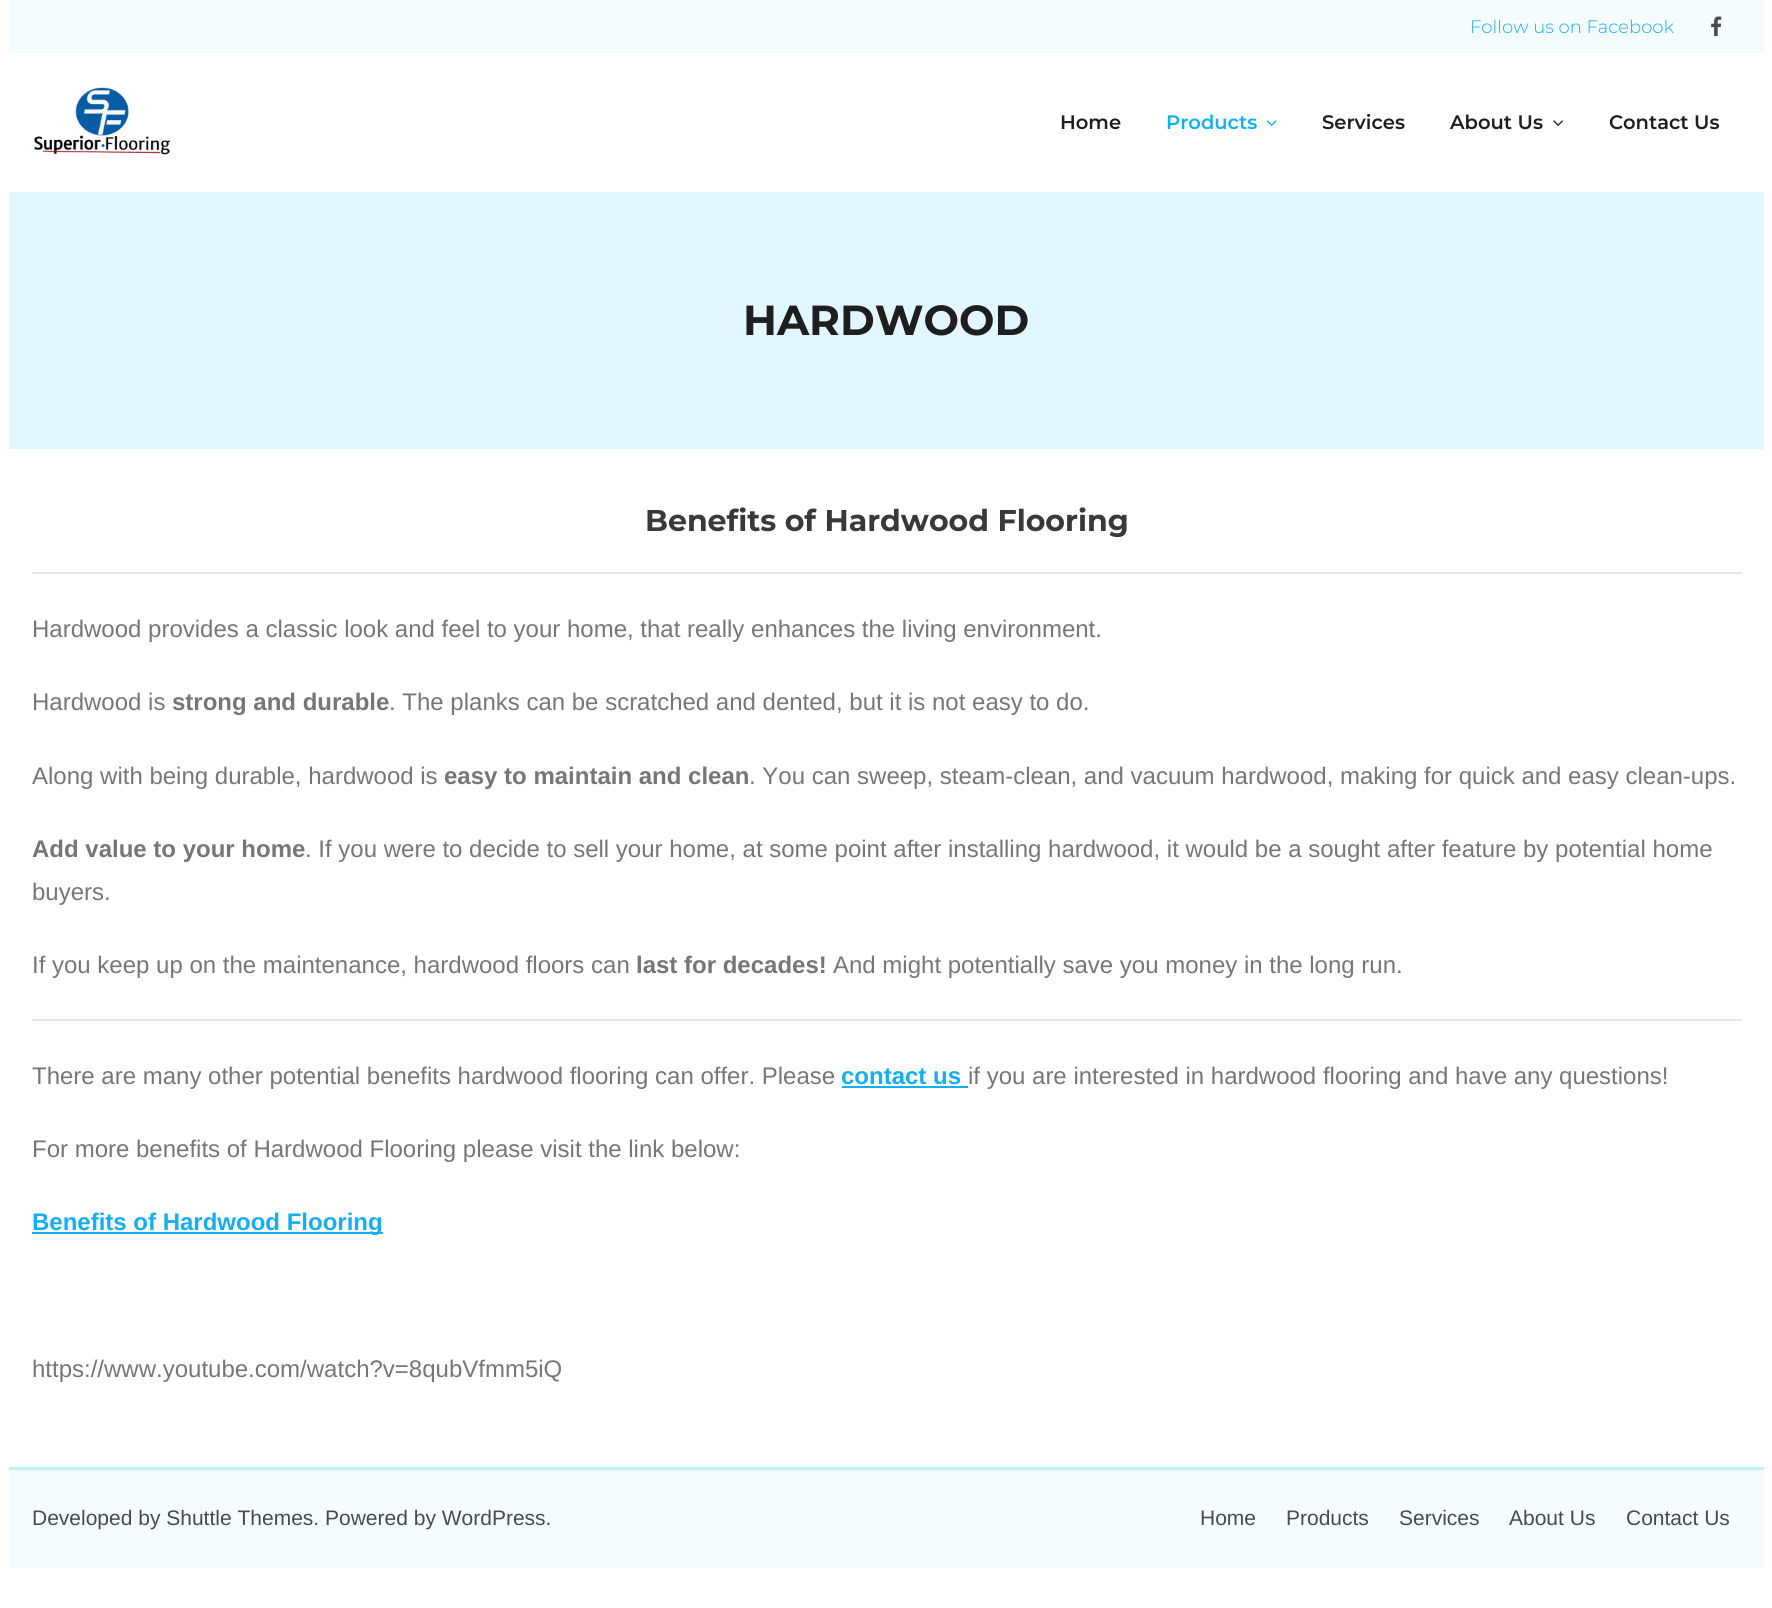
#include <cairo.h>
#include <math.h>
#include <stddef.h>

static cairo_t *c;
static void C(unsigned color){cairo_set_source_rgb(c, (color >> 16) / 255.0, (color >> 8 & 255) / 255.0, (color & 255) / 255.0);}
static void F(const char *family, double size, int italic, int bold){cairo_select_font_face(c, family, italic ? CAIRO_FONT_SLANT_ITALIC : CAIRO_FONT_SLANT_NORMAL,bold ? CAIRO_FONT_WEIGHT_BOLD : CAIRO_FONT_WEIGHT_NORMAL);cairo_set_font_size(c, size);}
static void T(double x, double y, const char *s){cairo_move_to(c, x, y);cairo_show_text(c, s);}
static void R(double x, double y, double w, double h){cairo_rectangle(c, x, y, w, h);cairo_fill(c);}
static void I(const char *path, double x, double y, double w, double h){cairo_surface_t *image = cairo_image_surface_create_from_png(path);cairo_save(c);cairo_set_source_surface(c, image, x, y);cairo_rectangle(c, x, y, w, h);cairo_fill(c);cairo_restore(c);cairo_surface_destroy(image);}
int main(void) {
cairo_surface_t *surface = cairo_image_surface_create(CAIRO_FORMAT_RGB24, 1772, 1608);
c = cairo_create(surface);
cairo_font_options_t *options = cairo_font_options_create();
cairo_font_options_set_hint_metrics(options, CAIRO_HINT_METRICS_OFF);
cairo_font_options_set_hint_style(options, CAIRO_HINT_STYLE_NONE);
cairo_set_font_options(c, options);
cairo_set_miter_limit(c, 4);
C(0xffffff);
cairo_paint(c);
C(0xf5fcff);
R(9,0,1755,53);
F("Montserrat Light",18,0,0);
C(0x13aff0);
T(1470,33,"Follow us on Facebook");
I("1.png",1711,16,11,20);
I("2.png",34,87,137,68);
F("Montserrat SemiBold",19.5,0,0);
C(0x1e1e1e);
T(1060,129,"Home");
C(0x13aff0);
T(1166,129,"Products");
I("3.png",1266,120,11,6);
C(0x1e1e1e);
T(1322,129,"Services");
T(1450,129,"About Us");
I("4.png",1553,120,10,6);
T(1609,129,"Contact Us");
C(0xe2f6ff);
R(9,192,1755,257);
F("Montserrat",42,0,1);
C(0x1e1e1e);
T(743,335,"HARDWOOD");
F("Montserrat",30,0,1);
C(0x3a3939);
T(645,531,"Benefits of Hardwood Flooring");
C(0xe6e6e6);
R(32,572,1710,2);
F("Liberation Sans",24,0,0);
C(0x767676);
T(32,637,"Hardwood provides a classic look and feel to your home, that really enhances the living environment.");
T(32,710,"Hardwood is");
F("Liberation Sans",24,0,1);
T(172,710,"strong and durable");
F("Liberation Sans",24,0,0);
T(389,710,". The planks can be scratched and dented, but it is not easy to do.");
T(32,784,"Along with being durable, hardwood is");
F("Liberation Sans",24,0,1);
T(444,784,"easy to maintain and clean");
F("Liberation Sans",24,0,0);
T(749,784,". You can sweep, steam-clean, and vacuum hardwood, making for quick and easy clean-ups.");
F("Liberation Sans",24,0,1);
T(32,857,"Add value to your home");
F("Liberation Sans",24,0,0);
T(305,857,". If you were to decide to sell your home, at some point after installing hardwood, it would be a sought after feature by potential home");
T(32,900,"buyers.");
T(32,973,"If you keep up on the maintenance, hardwood floors can");
F("Liberation Sans",24,0,1);
T(636,973,"last for decades!");
F("Liberation Sans",24,0,0);
T(833,973,"And might potentially save you money in the long run.");
C(0xe6e6e6);
R(32,1019,1710,2);
C(0x767676);
T(32,1084,"There are many other potential benefits hardwood flooring can offer. Please");
F("Liberation Sans",24,0,1);
C(0x13aff0);
T(841,1084,"contact us");
R(842,1086,126,2);
F("Liberation Sans",24,0,0);
C(0x767676);
T(968,1084,"if you are interested in hardwood flooring and have any questions!");
T(32,1157,"For more benefits of Hardwood Flooring please visit the link below:");
C(0x13aff0);
R(32,1232,351,2);
F("Liberation Sans",24,0,1);
T(32,1230,"Benefits of Hardwood Flooring");
F("Liberation Sans",24,0,0);
C(0x767676);
T(32,1377,"https://www.youtube.com/watch?v=8qubVfmm5iQ");
C(0xf5fcff);
R(9,1470,1755,98);
C(0xc5eeff);
R(9,1467,1755,3);
F("Liberation Sans",21,0,0);
C(0x4a4a4a);
T(32,1525,"Developed by Shuttle Themes. Powered by WordPress.");
T(1200,1525,"Home");
T(1286,1525,"Products");
T(1399,1525,"Services");
T(1509,1525,"About Us");
T(1626,1525,"Contact Us");
cairo_surface_write_to_png(surface, "o.png");
cairo_font_options_destroy(options);
cairo_destroy(c);
cairo_surface_destroy(surface);
return 0;
}
